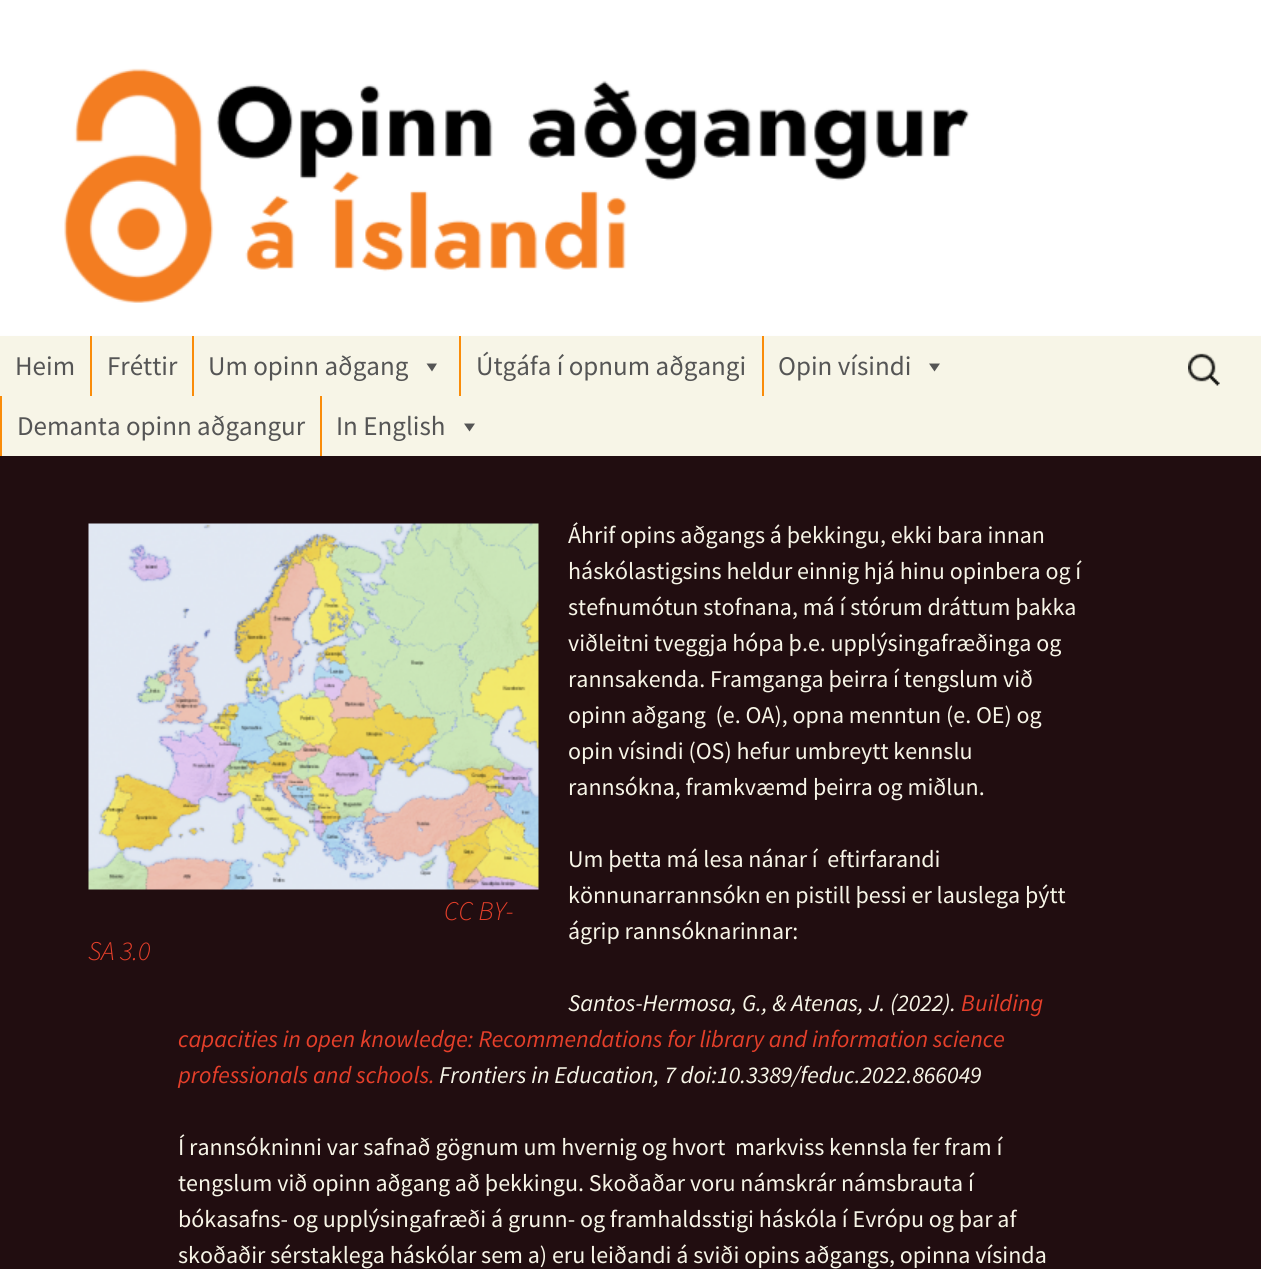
#include <cairo.h>
#include <math.h>
#include <stddef.h>

static cairo_t *c;
static void C(unsigned color){cairo_set_source_rgb(c, (color >> 16) / 255.0, (color >> 8 & 255) / 255.0, (color & 255) / 255.0);}
static void F(const char *family, double size, int italic, int bold){cairo_select_font_face(c, family, italic ? CAIRO_FONT_SLANT_ITALIC : CAIRO_FONT_SLANT_NORMAL,bold ? CAIRO_FONT_WEIGHT_BOLD : CAIRO_FONT_WEIGHT_NORMAL);cairo_set_font_size(c, size);}
static void T(double x, double y, const char *s){cairo_move_to(c, x, y);cairo_show_text(c, s);}
static void R(double x, double y, double w, double h){cairo_rectangle(c, x, y, w, h);cairo_fill(c);}
static void I(const char *path, double x, double y, double w, double h){cairo_surface_t *image = cairo_image_surface_create_from_png(path);cairo_save(c);cairo_set_source_surface(c, image, x, y);cairo_rectangle(c, x, y, w, h);cairo_fill(c);cairo_restore(c);cairo_surface_destroy(image);}
int main(void) {
cairo_surface_t *surface = cairo_image_surface_create(CAIRO_FORMAT_RGB24, 1261, 1269);
c = cairo_create(surface);
cairo_font_options_t *options = cairo_font_options_create();
cairo_font_options_set_hint_metrics(options, CAIRO_HINT_METRICS_OFF);
cairo_font_options_set_hint_style(options, CAIRO_HINT_STYLE_NONE);
cairo_set_font_options(c, options);
cairo_set_miter_limit(c, 4);
C(0xffffff);
cairo_paint(c);
I("1.png",0,68,1261,268);
C(0xf7f5e7);
R(0,336,1261,120);
F("Source Sans Pro",27,0,0);
C(0x555555);
T(15,375,"Heim");
C(0xfa8c0a);
R(90,336,2,60);
C(0x555555);
T(107,375,"Fréttir");
C(0xfa8c0a);
R(192,336,2,60);
C(0x555555);
T(208,375,"Um opinn aðgang");
cairo_new_path(c);
cairo_move_to(c,437,363.5);
cairo_line_to(c,432,371.5);
cairo_line_to(c,426.5,363.5);
cairo_close_path(c);
cairo_fill(c);
C(0xfa8c0a);
R(459,336,2,60);
C(0x555555);
T(476,375,"Útgáfa í opnum aðgangi");
C(0xfa8c0a);
R(762,336,2,60);
C(0x555555);
T(778,375,"Opin vísindi");
cairo_new_path(c);
cairo_move_to(c,940,363.5);
cairo_line_to(c,934.5,371.5);
cairo_line_to(c,929,363.5);
cairo_close_path(c);
cairo_fill(c);
C(0xfa8c0a);
R(0,396,2,60);
C(0x555555);
T(17,435,"Demanta opinn aðgangur");
C(0xfa8c0a);
R(320,396,2,60);
C(0x555555);
T(336,435,"In English");
cairo_new_path(c);
cairo_move_to(c,475,423.5);
cairo_line_to(c,469.5,431.5);
cairo_line_to(c,464,423.5);
cairo_close_path(c);
cairo_fill(c);
I("2.png",1188,353,32,33);
C(0x210d10);
R(0,456,1261,813);
F("Source Sans Pro",24,0,0);
C(0xf7f5e7);
T(568,543,"Áhrif opins aðgangs á þekkingu, ekki bara innan");
T(568,579,"háskólastigsins heldur einnig hjá hinu opinbera og í");
T(568,615,"stefnumótun stofnana, má í stórum dráttum þakka");
T(568,651,"viðleitni tveggja hópa þ.e. upplýsingafræðinga og");
T(568,687,"rannsakenda. Framganga þeirra í tengslum við");
T(568,723,"opinn aðgang  (e. OA), opna menntun (e. OE) og");
T(568,759,"opin vísindi (OS) hefur umbreytt kennslu");
T(568,795,"rannsókna, framkvæmd þeirra og miðlun.");
I("3.png",88,523,451,367);
F("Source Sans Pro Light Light",27,1,0);
C(0xe63f2a);
T(444,920,"CC BY-");
T(88,960,"SA 3.0");
F("Source Sans Pro",24,0,0);
C(0xf7f5e7);
T(568,867,"Um þetta má lesa nánar í  eftirfarandi");
T(568,903,"könnunarrannsókn en pistill þessi er lauslega þýtt");
T(568,939,"ágrip rannsóknarinnar:");
F("Source Sans Pro",24,1,0);
T(568,1011,"Santos-Hermosa, G., & Atenas, J. (2022).");
C(0xe63f2a);
T(961,1011,"Building");
T(178,1047,"capacities in open knowledge: Recommendations for library and information science");
T(178,1083,"professionals and schools.");
C(0xf7f5e7);
T(439,1083,"Frontiers in Education, 7 doi:10.3389/feduc.2022.866049");
F("Source Sans Pro",24,0,0);
T(178,1155,"Í rannsókninni var safnað gögnum um hvernig og hvort  markviss kennsla fer fram í");
T(178,1191,"tengslum við opinn aðgang að þekkingu. Skoðaðar voru námskrár námsbrauta í");
T(178,1227,"bókasafns- og upplýsingafræði á grunn- og framhaldsstigi háskóla í Evrópu og þar af");
T(178,1263,"skoðaðir sérstaklega háskólar sem a) eru leiðandi á sviði opins aðgangs, opinna vísinda");
cairo_surface_write_to_png(surface, "o.png");
cairo_font_options_destroy(options);
cairo_destroy(c);
cairo_surface_destroy(surface);
return 0;
}
